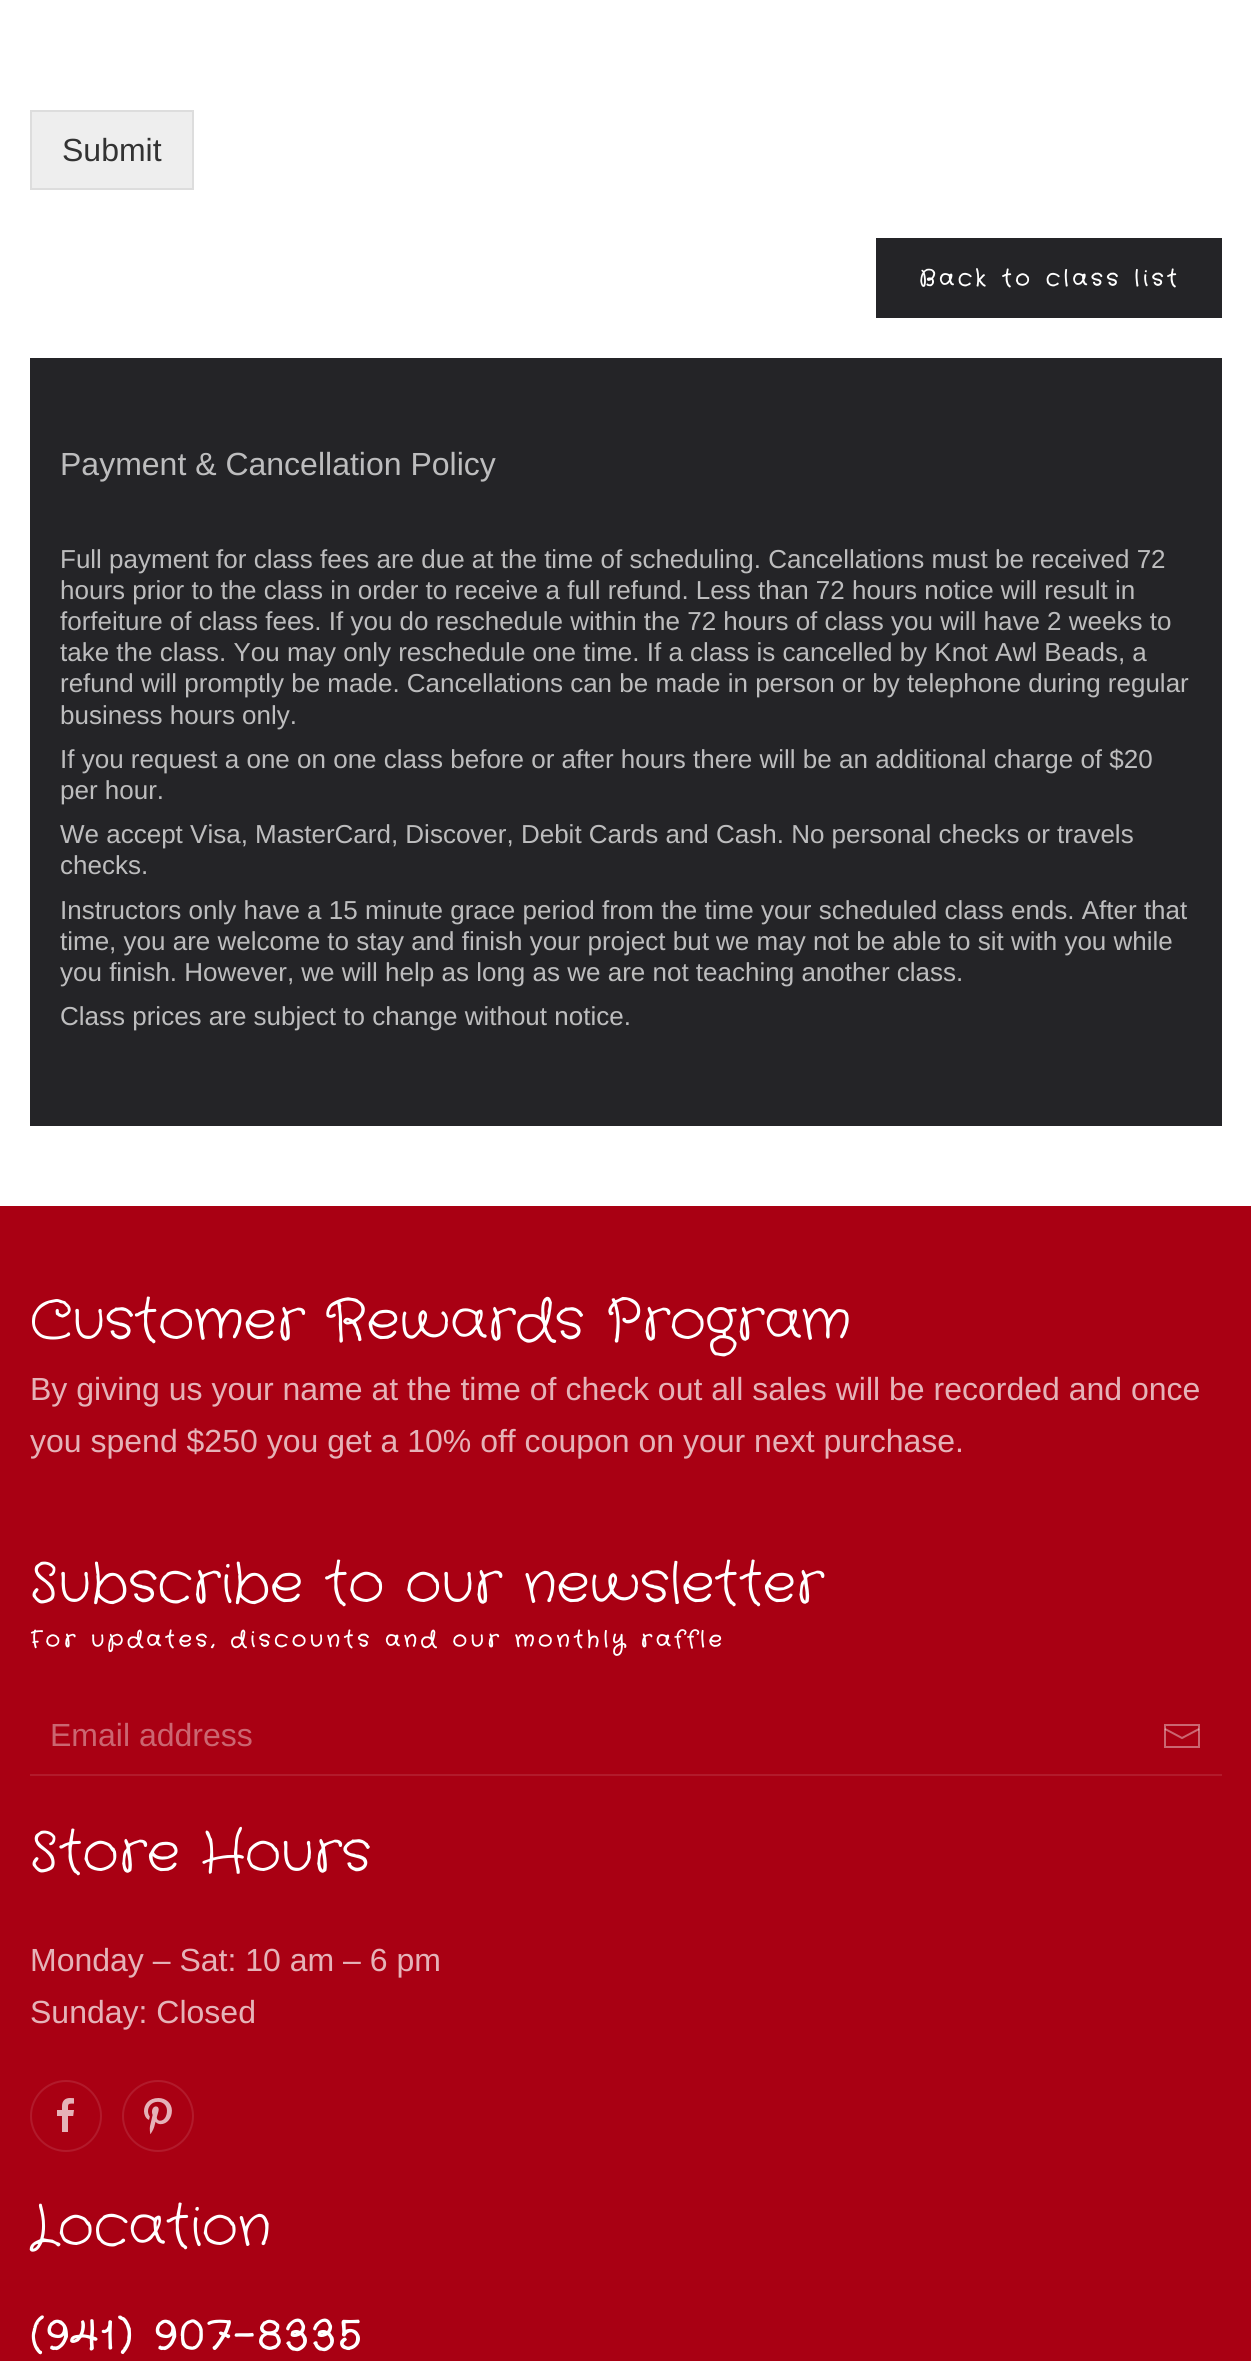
#include <cairo.h>
#include <math.h>
#include <stddef.h>

static cairo_t *c;
static void C(unsigned color){cairo_set_source_rgb(c, (color >> 16) / 255.0, (color >> 8 & 255) / 255.0, (color & 255) / 255.0);}
static void F(const char *family, double size, int italic, int bold){cairo_select_font_face(c, family, italic ? CAIRO_FONT_SLANT_ITALIC : CAIRO_FONT_SLANT_NORMAL,bold ? CAIRO_FONT_WEIGHT_BOLD : CAIRO_FONT_WEIGHT_NORMAL);cairo_set_font_size(c, size);}
static void T(double x, double y, const char *s){cairo_move_to(c, x, y);cairo_show_text(c, s);}
static void L(double x, double y, const char *s, double letter, double word){cairo_move_to(c, x, y);while (*s) {char ch[5] = {0};int n = 0;do ch[n++] = *s++; while ((*s & 0xC0) == 0x80);cairo_show_text(c, ch);cairo_rel_move_to(c, letter + word * (*ch == ' '), 0);}}
static void R(double x, double y, double w, double h){cairo_rectangle(c, x, y, w, h);cairo_fill(c);}
static void I(const char *path, double x, double y, double w, double h){cairo_surface_t *image = cairo_image_surface_create_from_png(path);cairo_save(c);cairo_set_source_surface(c, image, x, y);cairo_rectangle(c, x, y, w, h);cairo_fill(c);cairo_restore(c);cairo_surface_destroy(image);}
int main(void) {
cairo_surface_t *surface = cairo_image_surface_create(CAIRO_FORMAT_RGB24, 1251, 2361);
c = cairo_create(surface);
cairo_font_options_t *options = cairo_font_options_create();
cairo_font_options_set_hint_metrics(options, CAIRO_HINT_METRICS_OFF);
cairo_font_options_set_hint_style(options, CAIRO_HINT_STYLE_NONE);
cairo_set_font_options(c, options);
cairo_set_miter_limit(c, 4);
C(0xffffff);
cairo_paint(c);
C(0xeeeeee);
cairo_rectangle(c,31,111,162,78);
cairo_fill_preserve(c);
C(0xdddddd);
cairo_stroke(c);
F("Liberation Sans",32,0,0);
C(0x333333);
T(62,161,"Submit");
C(0x242427);
R(876,238,346,80);
F("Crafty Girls",22,0,1);
C(0xffffff);
L(919,285,"Back to class list",4,0);
C(0x242427);
R(30,358,1192,768);
F("Arimo",32,0,0);
C(0xbdbdbe);
T(60,475,"Payment & Cancellation Policy");
F("Arimo",26,0,0);
T(60,568,"Full payment for class fees are due at the time of scheduling. Cancellations must be received 72");
T(60,599,"hours prior to the class in order to receive a full refund. Less than 72 hours notice will result in");
T(60,630,"forfeiture of class fees. If you do reschedule within the 72 hours of class you will have 2 weeks to");
T(60,661,"take the class. You may only reschedule one time. If a class is cancelled by Knot Awl Beads, a");
T(60,692,"refund will promptly be made. Cancellations can be made in person or by telephone during regular");
T(60,724,"business hours only.");
T(60,768,"If you request a one on one class before or after hours there will be an additional charge of $20");
T(60,799,"per hour.");
T(60,843,"We accept Visa, MasterCard, Discover, Debit Cards and Cash. No personal checks or travels");
T(60,874,"checks.");
T(60,919,"Instructors only have a 15 minute grace period from the time your scheduled class ends. After that");
T(60,950,"time, you are welcome to stay and finish your project but we may not be able to sit with you while");
T(60,981,"you finish. However, we will help as long as we are not teaching another class.");
T(60,1025,"Class prices are subject to change without notice.");
C(0xa90013);
R(0,1206,1251,1155);
F("Crafty Girls",56,0,0);
C(0xffffff);
T(30,1337,"Customer Rewards Program");
F("Arimo",32,0,0);
C(0xe5b3b8);
T(30,1400,"By giving us your name at the time of check out all sales will be recorded and once");
T(30,1452,"you spend $250 you get a 10% off coupon on your next purchase.");
F("Crafty Girls",56,0,0);
C(0xffffff);
T(30,1600,"Subscribe to our newsletter");
F("Crafty Girls",22,0,1);
L(30,1646,"For updates, discounts and our monthly raffle",4,0);
C(0xb21a2b);
R(30,1774,1192,2);
F("Arimo",32,0,0);
C(0xcb6671);
T(50,1746,"Email address");
cairo_new_path(c);
cairo_move_to(c,1165,1729);
cairo_line_to(c,1182,1738);
cairo_line_to(c,1199,1729);
cairo_stroke(c);
cairo_set_source_rgba(c,1,1,1,0.4);
cairo_new_path(c);
cairo_move_to(c,1164,1724);
cairo_line_to(c,1164,1748);
cairo_line_to(c,1200,1748);
cairo_line_to(c,1200,1724);
cairo_close_path(c);
cairo_move_to(c,1198,1746);
cairo_line_to(c,1166,1746);
cairo_line_to(c,1166,1726);
cairo_line_to(c,1198,1726);
cairo_close_path(c);
cairo_fill(c);
F("Crafty Girls",56,0,0);
C(0xffffff);
T(30,1869,"Store Hours");
F("Arimo",32,0,0);
C(0xe5b3b8);
T(30,1971,"Monday – Sat: 10 am – 6 pm");
T(30,2023,"Sunday: Closed");
cairo_new_path(c);
cairo_arc(c,66,2116,35,0,2 * M_PI);
C(0xb21a2b);
cairo_stroke(c);
I("1.png",57,2098,17,34);
cairo_arc(c,158,2116,35,0,2 * M_PI);
cairo_stroke(c);
I("2.png",144,2098,28,36);
F("Crafty Girls",56,0,0);
C(0xffffff);
T(30,2243,"Location");
F("Crafty Girls",40,0,1);
L(30,2348,"(941) 907-8335",4,0);
cairo_surface_write_to_png(surface, "o.png");
cairo_font_options_destroy(options);
cairo_destroy(c);
cairo_surface_destroy(surface);
return 0;
}
